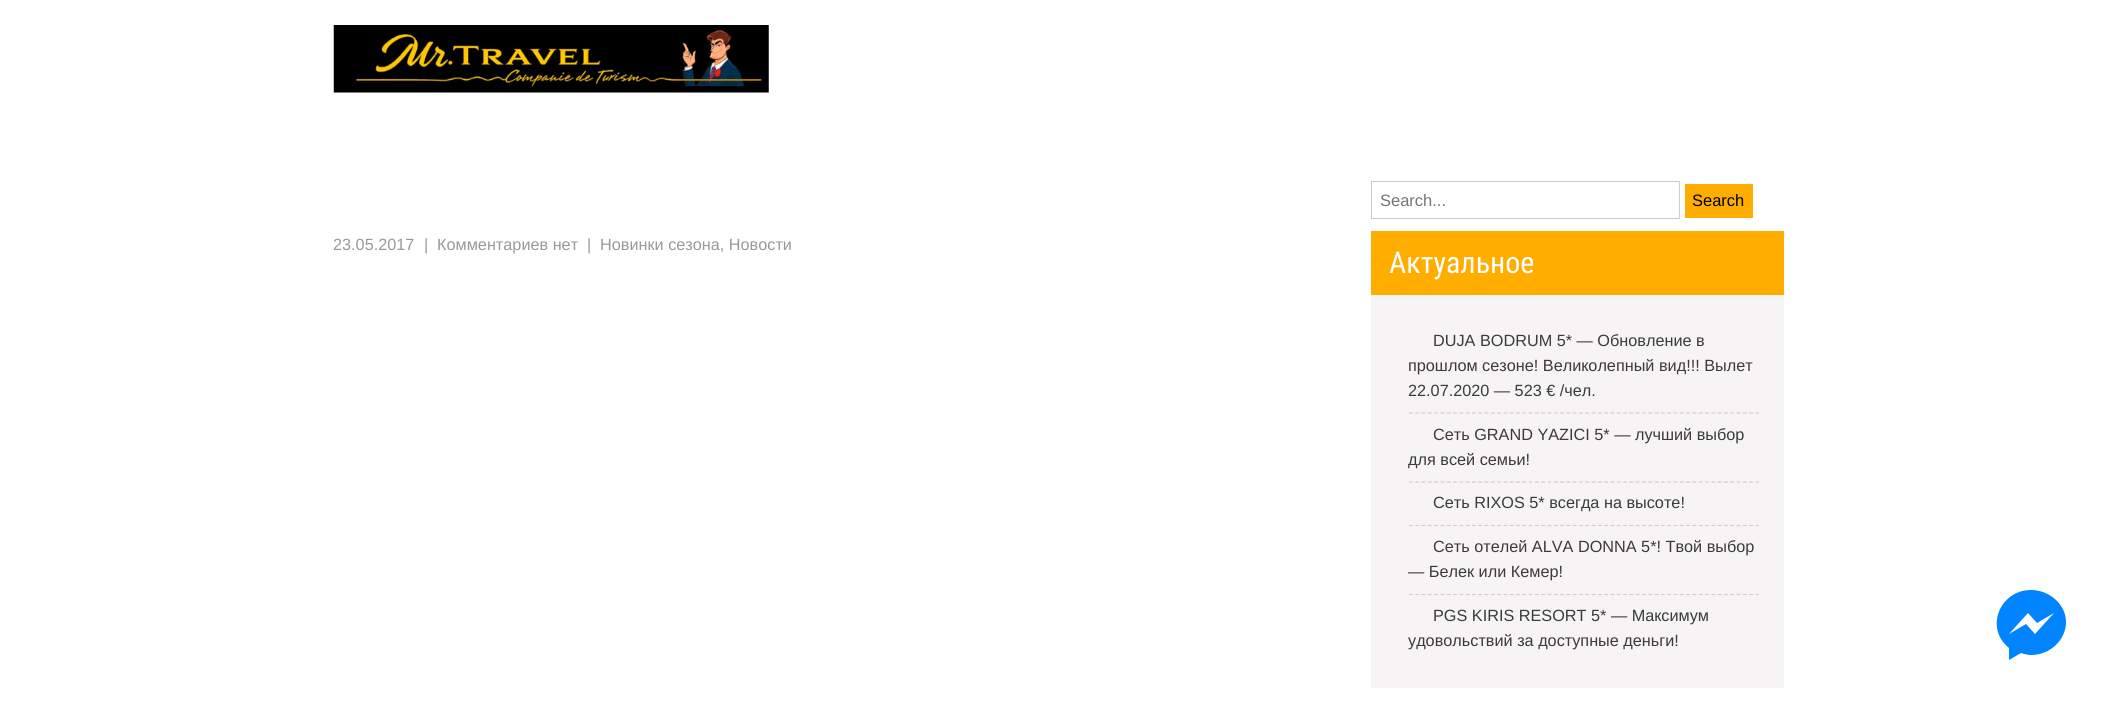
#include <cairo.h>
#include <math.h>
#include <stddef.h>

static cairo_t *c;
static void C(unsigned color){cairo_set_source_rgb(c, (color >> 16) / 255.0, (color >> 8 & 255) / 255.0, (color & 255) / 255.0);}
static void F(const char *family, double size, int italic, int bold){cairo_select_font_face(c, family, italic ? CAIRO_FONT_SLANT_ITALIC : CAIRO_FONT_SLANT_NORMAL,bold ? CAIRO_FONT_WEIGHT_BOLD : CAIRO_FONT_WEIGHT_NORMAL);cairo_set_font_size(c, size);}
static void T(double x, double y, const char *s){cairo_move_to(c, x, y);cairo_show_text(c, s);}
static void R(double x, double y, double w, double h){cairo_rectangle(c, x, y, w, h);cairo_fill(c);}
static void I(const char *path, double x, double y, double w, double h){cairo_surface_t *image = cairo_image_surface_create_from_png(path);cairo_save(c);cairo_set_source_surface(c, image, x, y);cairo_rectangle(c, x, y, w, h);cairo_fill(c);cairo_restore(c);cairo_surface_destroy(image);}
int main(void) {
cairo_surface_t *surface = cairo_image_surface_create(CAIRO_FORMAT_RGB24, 2116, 710);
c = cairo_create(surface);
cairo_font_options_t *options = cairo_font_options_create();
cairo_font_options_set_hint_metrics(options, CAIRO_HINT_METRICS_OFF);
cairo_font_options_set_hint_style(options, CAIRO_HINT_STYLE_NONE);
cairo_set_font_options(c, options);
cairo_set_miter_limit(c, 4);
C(0xffffff);
cairo_paint(c);
I("1.png",333,25,436,68);
F("Liberation Sans",16.25,0,0);
C(0x999999);
T(333,250,"23.05.2017");
T(424,250,"|");
T(437,250,"Комментариев нет");
T(587,250,"|");
T(600,250,"Новинки сезона, Новости");
cairo_rectangle(c,1371.5,181.5,308,37);
C(0xcccccc);
cairo_set_line_width(c,1);
cairo_stroke(c);
F("Liberation Sans",16.5,0,0);
C(0x757575);
T(1380,206,"Search...");
C(0xffae00);
R(1685,184,68,34);
C(0x000000);
T(1692,206,"Search");
C(0xffae00);
R(1371,231,413,64);
F("Roboto Condensed",30,0,0);
C(0xffffff);
T(1389,273,"Актуальное");
C(0xf6f4f4);
R(1371,295,413,393);
cairo_new_path(c);
cairo_move_to(c,1409,413);
cairo_line_to(c,1759,413);
C(0xd0cfcf);
cairo_set_line_width(c,1.2);
cairo_set_dash(c,(double[]){3.75,2.55},2,0);
cairo_stroke(c);
F("Liberation Sans",16.25,0,0);
C(0x3b3b3b);
T(1433,346,"DUJA BODRUM 5* — Обновление в");
T(1408,371,"прошлом сезоне! Великолепный вид!!! Вылет");
T(1408,396,"22.07.2020 — 523 € /чел.");
cairo_new_path(c);
cairo_move_to(c,1409,482);
cairo_line_to(c,1759,482);
C(0xd0cfcf);
cairo_stroke(c);
C(0x3b3b3b);
T(1433,440,"Сеть GRAND YAZICI 5* — лучший выбор");
T(1408,465,"для всей семьи!");
cairo_new_path(c);
cairo_move_to(c,1409,525.5);
cairo_line_to(c,1759,525.5);
C(0xd0cfcf);
cairo_stroke(c);
C(0x3b3b3b);
T(1433,508,"Сеть RIXOS 5* всегда на высоте!");
cairo_new_path(c);
cairo_move_to(c,1409,594.5);
cairo_line_to(c,1759,594.5);
C(0xd0cfcf);
cairo_stroke(c);
C(0x3b3b3b);
T(1433,552,"Сеть отелей ALVA DONNA 5*! Твой выбор");
T(1408,577,"— Белек или Кемер!");
T(1433,621,"PGS KIRIS RESORT 5* — Максимум");
T(1408,646,"удовольствий за доступные деньги!");
C(0x0084ff);
cairo_new_path(c);
cairo_move_to(c,2031,590);
cairo_curve_to(c,2000,590,1984,628,2009,648);
cairo_line_to(c,2009,660);
cairo_line_to(c,2021,653);
cairo_curve_to(c,2024,654,2028,655,2031,655);
cairo_curve_to(c,2050,655,2066,640,2066,622);
cairo_curve_to(c,2066,605,2050,590,2031,590);
cairo_close_path(c);
cairo_move_to(c,2035,634);
cairo_line_to(c,2026,624);
cairo_line_to(c,2009,634);
cairo_line_to(c,2028,613);
cairo_line_to(c,2037,623);
cairo_line_to(c,2054,613);
cairo_close_path(c);
cairo_fill(c);
cairo_surface_write_to_png(surface, "o.png");
cairo_font_options_destroy(options);
cairo_destroy(c);
cairo_surface_destroy(surface);
return 0;
}
